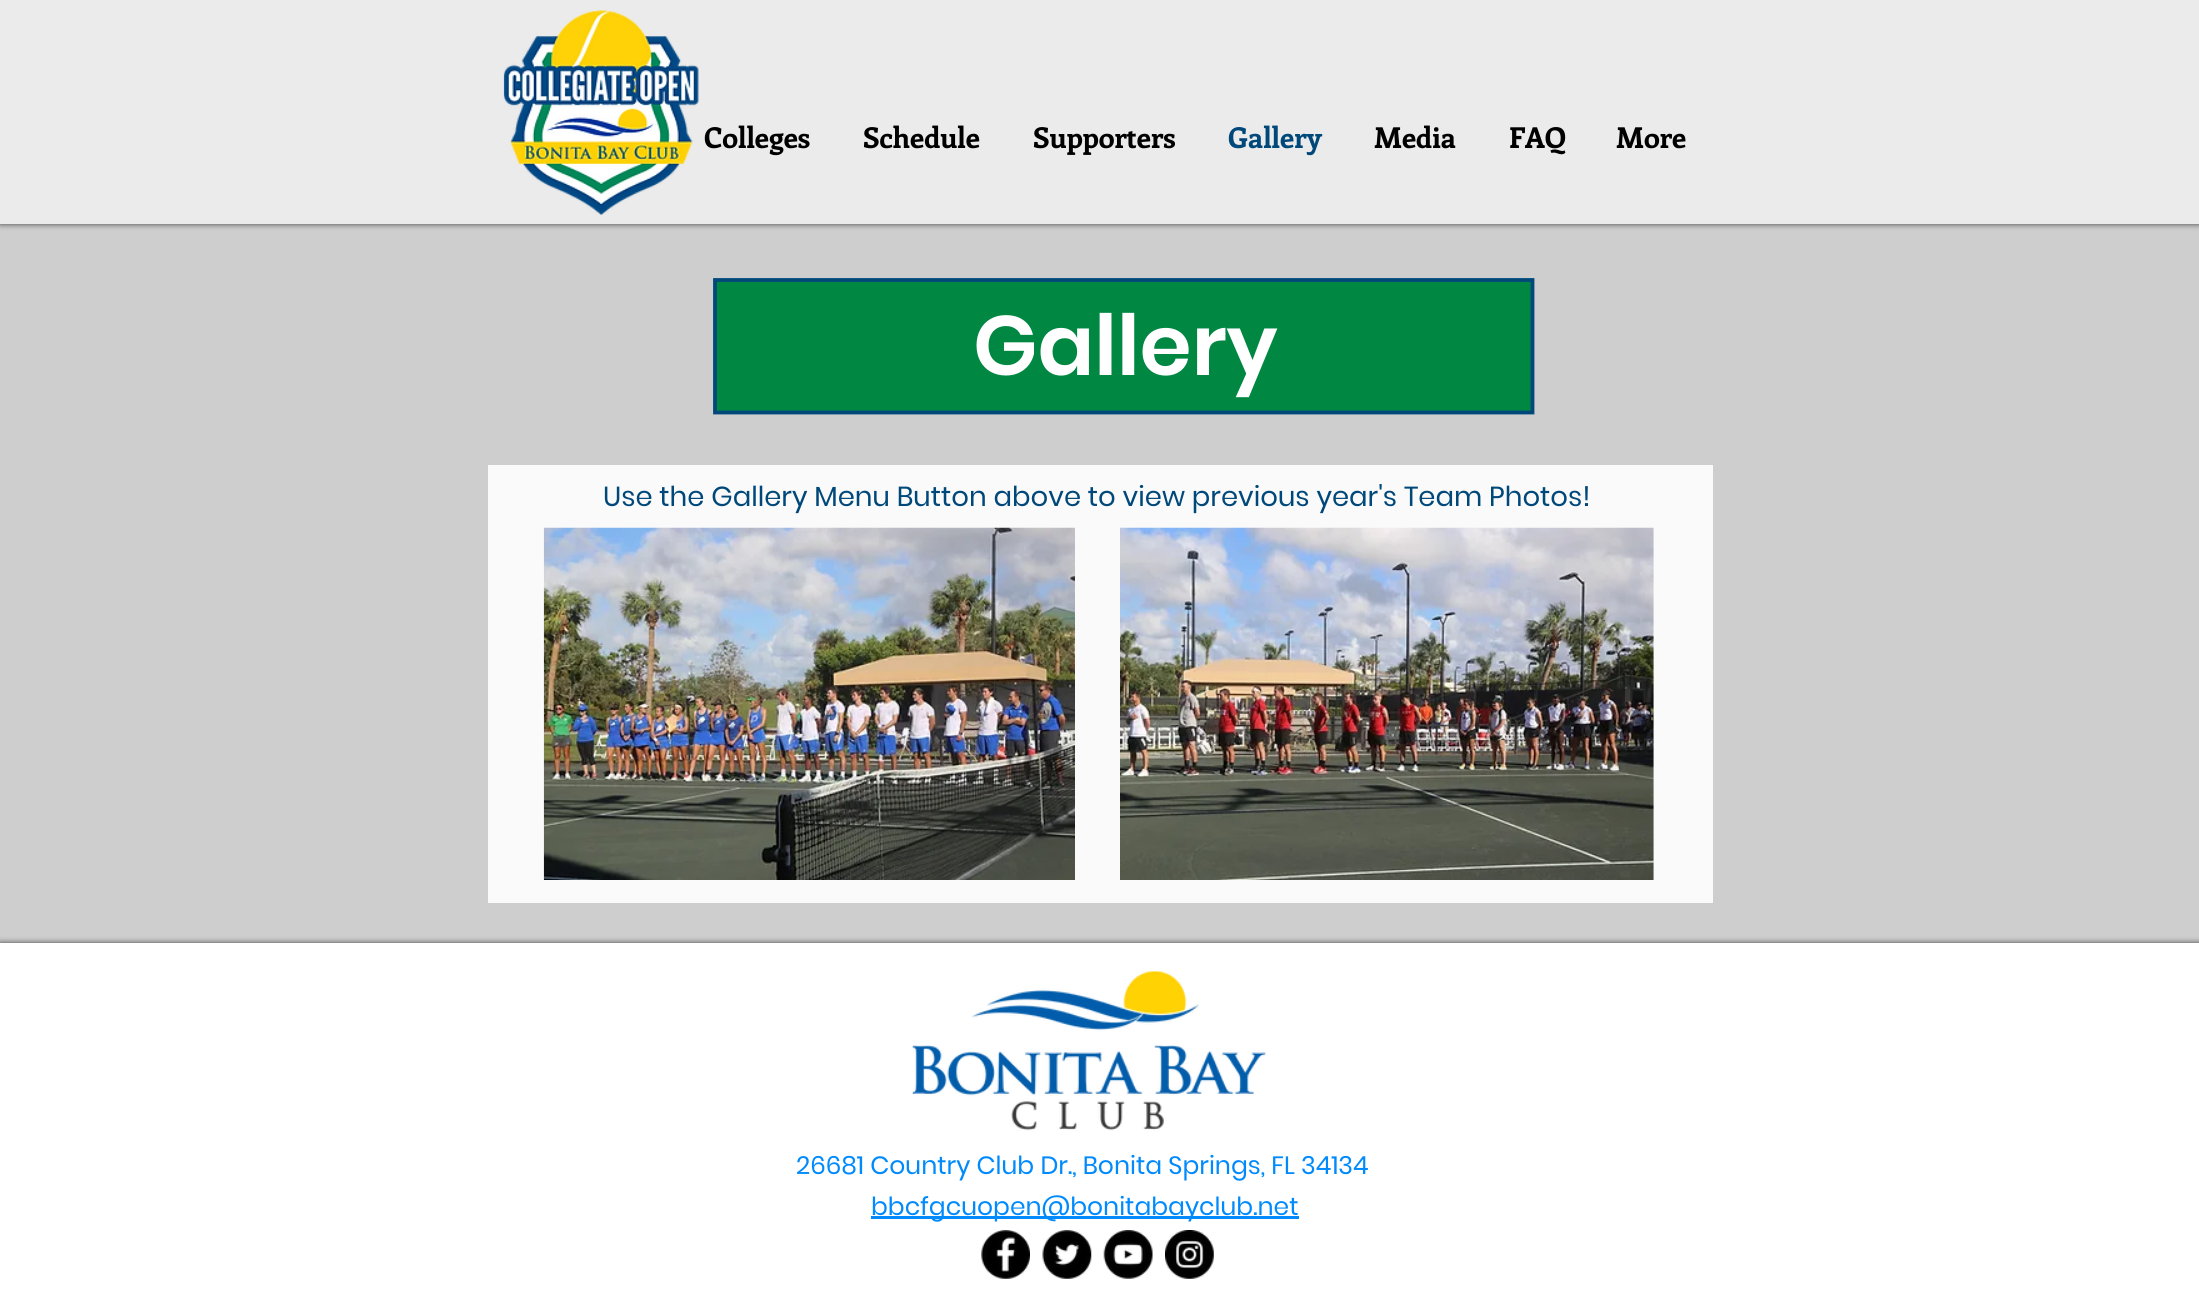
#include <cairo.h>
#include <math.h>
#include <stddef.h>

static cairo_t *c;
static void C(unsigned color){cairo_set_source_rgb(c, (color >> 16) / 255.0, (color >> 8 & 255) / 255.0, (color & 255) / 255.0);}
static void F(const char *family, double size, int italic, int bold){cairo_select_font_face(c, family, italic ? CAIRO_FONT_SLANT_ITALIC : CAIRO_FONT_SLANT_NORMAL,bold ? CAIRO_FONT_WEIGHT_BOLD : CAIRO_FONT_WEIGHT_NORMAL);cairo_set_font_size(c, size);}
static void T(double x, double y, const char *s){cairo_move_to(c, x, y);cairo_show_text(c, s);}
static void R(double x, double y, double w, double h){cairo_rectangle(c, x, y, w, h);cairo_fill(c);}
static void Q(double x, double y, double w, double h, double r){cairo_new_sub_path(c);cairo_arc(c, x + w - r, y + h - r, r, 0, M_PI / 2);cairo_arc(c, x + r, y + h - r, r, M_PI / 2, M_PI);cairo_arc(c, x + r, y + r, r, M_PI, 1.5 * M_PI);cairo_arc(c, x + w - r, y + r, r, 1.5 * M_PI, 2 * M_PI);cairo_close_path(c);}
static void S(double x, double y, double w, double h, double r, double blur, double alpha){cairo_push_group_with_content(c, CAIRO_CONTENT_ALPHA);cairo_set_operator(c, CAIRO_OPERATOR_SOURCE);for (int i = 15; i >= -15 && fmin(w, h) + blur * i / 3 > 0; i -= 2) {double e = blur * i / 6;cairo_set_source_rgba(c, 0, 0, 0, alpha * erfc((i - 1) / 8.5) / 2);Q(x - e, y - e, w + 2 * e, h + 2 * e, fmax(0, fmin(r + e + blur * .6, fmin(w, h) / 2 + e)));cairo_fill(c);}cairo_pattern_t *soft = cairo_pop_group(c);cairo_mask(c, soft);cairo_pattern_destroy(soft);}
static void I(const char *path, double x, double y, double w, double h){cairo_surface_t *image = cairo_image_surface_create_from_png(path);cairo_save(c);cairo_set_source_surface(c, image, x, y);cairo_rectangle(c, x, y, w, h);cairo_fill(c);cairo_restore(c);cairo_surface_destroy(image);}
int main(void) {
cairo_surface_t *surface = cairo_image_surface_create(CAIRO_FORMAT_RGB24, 2199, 1304);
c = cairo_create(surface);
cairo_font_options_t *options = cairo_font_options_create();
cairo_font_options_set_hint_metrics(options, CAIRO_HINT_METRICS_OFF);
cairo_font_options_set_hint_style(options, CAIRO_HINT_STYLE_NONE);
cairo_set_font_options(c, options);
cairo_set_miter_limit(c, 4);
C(0xcecece);
cairo_paint(c);
cairo_save(c);
cairo_set_fill_rule(c,CAIRO_FILL_RULE_EVEN_ODD);
cairo_new_path(c);
cairo_move_to(c,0,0);
cairo_line_to(c,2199,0);
cairo_line_to(c,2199,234);
cairo_line_to(c,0,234);
cairo_close_path(c);
cairo_move_to(c,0,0);
cairo_line_to(c,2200,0);
cairo_line_to(c,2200,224);
cairo_line_to(c,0,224);
cairo_close_path(c);
cairo_clip(c);
C(0x000000);
S(0,0,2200,224,0,3,.7);
cairo_restore(c);
cairo_set_source_rgba(c,1,1,1,0.6);
R(0,0,2199,224);
I("1.png",503,10,196,205);
F("Enriqueta",28.75,0,1);
C(0x000000);
T(704,148,"Colleges");
T(863,148,"Schedule");
T(1033,148,"Supporters");
C(0x00487a);
T(1228,148,"Gallery");
C(0x000000);
T(1374,148,"Media");
T(1509,148,"FAQ");
T(1616,148,"More");
C(0x008843);
R(716,281,815,130);
cairo_new_path(c);
cairo_move_to(c,1532.5,280);
cairo_line_to(c,1532.5,412.5);
cairo_line_to(c,715,412.5);
cairo_line_to(c,715,280);
cairo_close_path(c);
C(0x00487a);
cairo_set_line_width(c,3.8);
cairo_stroke(c);
F("Poppins SemiBold",84,0,0);
C(0xffffff);
T(973,375,"Gallery");
C(0xfafafa);
R(488,465,1225,438);
F("Poppins",27.5,0,0);
C(0x00487a);
T(603,506,"Use the Gallery Menu Button above to view previous year's Team Photos!");
I("2.png",543,527,532,353);
I("3.png",1120,527,534,353);
C(0x000000);
S(0,943,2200,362,0,3,.7);
C(0xffffff);
R(0,943,2199,361);
I("4.png",912,971,355,160);
F("Poppins",25,0,0);
C(0x008afc);
T(796,1174,"26681 Country Club Dr., Bonita Springs, FL 34134");
R(871,1216,428,3);
T(871,1215,"bbcfgcuopen@bonitabayclub.net");
I("5.png",981,1230,49,49);
I("6.png",1042,1230,50,49);
I("7.png",1103,1230,50,49);
I("8.png",1165,1230,49,49);
cairo_surface_write_to_png(surface, "o.png");
cairo_font_options_destroy(options);
cairo_destroy(c);
cairo_surface_destroy(surface);
return 0;
}
